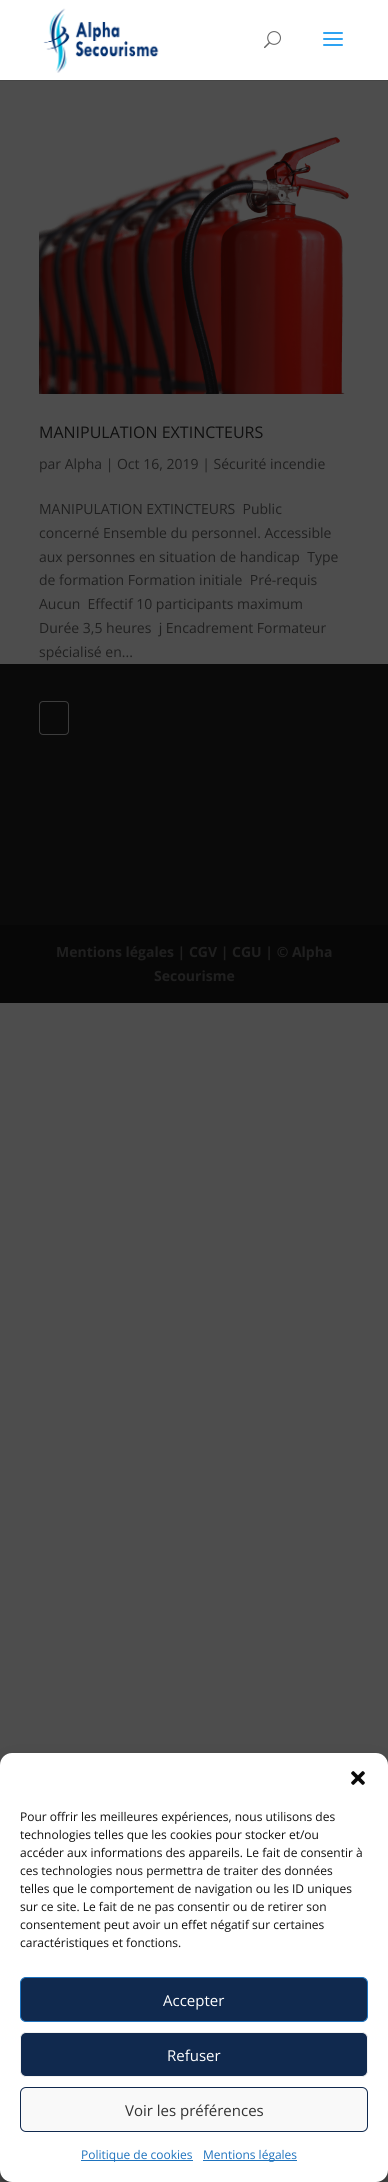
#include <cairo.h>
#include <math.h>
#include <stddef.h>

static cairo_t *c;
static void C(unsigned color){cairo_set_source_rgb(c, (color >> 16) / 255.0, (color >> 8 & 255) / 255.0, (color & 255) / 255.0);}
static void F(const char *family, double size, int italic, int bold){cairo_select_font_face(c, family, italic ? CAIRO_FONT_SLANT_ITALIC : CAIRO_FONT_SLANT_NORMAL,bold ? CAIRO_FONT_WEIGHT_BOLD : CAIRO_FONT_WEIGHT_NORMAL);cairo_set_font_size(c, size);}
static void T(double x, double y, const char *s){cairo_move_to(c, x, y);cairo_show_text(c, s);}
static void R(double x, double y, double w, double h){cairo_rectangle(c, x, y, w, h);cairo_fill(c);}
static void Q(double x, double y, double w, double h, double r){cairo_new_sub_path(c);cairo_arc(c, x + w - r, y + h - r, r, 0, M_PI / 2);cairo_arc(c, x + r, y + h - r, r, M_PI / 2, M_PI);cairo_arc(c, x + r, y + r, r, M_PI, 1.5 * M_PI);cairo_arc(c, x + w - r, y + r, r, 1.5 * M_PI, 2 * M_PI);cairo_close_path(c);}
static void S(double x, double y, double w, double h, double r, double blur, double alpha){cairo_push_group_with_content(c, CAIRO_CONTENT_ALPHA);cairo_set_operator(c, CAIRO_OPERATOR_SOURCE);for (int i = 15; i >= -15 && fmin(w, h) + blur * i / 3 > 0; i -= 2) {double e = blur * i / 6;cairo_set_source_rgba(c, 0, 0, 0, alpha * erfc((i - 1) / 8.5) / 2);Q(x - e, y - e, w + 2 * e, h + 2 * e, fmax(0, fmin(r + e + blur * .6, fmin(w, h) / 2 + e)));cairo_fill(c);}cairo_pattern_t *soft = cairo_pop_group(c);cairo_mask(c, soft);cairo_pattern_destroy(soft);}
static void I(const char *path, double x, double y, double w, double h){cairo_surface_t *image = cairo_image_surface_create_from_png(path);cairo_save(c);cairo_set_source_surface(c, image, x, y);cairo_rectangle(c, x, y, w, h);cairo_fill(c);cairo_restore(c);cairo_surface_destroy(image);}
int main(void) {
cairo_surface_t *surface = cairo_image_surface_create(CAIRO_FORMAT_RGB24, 388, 2182);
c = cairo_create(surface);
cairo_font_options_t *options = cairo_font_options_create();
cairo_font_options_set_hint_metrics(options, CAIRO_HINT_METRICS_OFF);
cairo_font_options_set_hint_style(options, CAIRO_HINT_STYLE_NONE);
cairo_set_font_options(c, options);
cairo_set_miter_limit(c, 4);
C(0x4d4d4d);
cairo_paint(c);
C(0x454545);
R(0,80,388,1);
C(0xffffff);
R(0,0,388,80);
I("1.png",43,8,116,65);
I("2.png",264,31,17,18);
I("3.png",323,32,20,14);
I("4.png",39,137,310,257);
F("Open Sans",16,0,0);
C(0x0f0f0f);
T(39,438,"MANIPULATION EXTINCTEURS");
F("Open Sans",14,0,0);
C(0x1f1f1f);
T(39,469,"par Alpha | Oct 16, 2019 | Sécurité incendie");
T(39,514,"MANIPULATION EXTINCTEURS  Public");
T(39,538,"concerné Ensemble du personnel. Accessible");
T(39,562,"aux personnes en situation de handicap  Type");
T(39,585,"de formation Formation initiale  Pré-requis");
T(39,609,"Aucun  Effectif 10 participants maximum ");
T(39,633,"Durée 3,5 heures  j Encadrement Formateur");
T(39,657,"spécialisé en...");
C(0x0a0a0a);
R(0,664,388,261);
Q(39.5,701.5,29,33,3.5);
C(0x3d3d3d);
cairo_set_line_width(c,1);
cairo_stroke(c);
C(0x070707);
R(0,925,388,78);
F("Open Sans",14,0,1);
C(0x1f1f1f);
T(56,957,"Mentions légales | CGV | CGU | © Alpha");
T(154,981,"Secourisme");
C(0x000000);
S(0,1759,388,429,12,3,.23);
S(0,1763,388,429,12,10,.19);
C(0xffffff);
Q(0,1753,388,429,12);
cairo_fill(c);
I("5.png",351,1771,14,14);
F("Open Sans",12,0,0);
C(0x0f0f0f);
T(20,1821,"Pour offrir les meilleures expériences, nous utilisons des");
T(20,1839,"technologies telles que les cookies pour stocker et/ou");
T(20,1857,"accéder aux informations des appareils. Le fait de consentir à");
T(20,1875,"ces technologies nous permettra de traiter des données");
T(20,1893,"telles que le comportement de navigation ou les ID uniques");
T(20,1911,"sur ce site. Le fait de ne pas consentir ou de retirer son");
T(20,1929,"consentement peut avoir un effet négatif sur certaines");
T(20,1947,"caractéristiques et fonctions.");
C(0x10294e);
Q(20.5,1977.5,347,44,5.5);
cairo_fill_preserve(c);
C(0x1e73be);
cairo_stroke(c);
F("Open Sans",15,0,0);
C(0xffffff);
T(163,2006,"Accepter");
C(0x10294e);
Q(20.5,2032.5,347,44,5.5);
cairo_fill_preserve(c);
C(0xf2f2f2);
cairo_stroke(c);
C(0xffffff);
T(167,2061,"Refuser");
C(0xf9f9f9);
Q(20.5,2087.5,347,44,5.5);
cairo_fill_preserve(c);
C(0x10294e);
cairo_stroke(c);
C(0x333333);
T(125,2116,"Voir les préférences");
C(0x1e73be);
R(81,2160,112,1);
F("Open Sans",12,0,0);
T(81,2159,"Politique de cookies");
R(203,2160,94,1);
T(203,2159,"Mentions légales");
cairo_surface_write_to_png(surface, "o.png");
cairo_font_options_destroy(options);
cairo_destroy(c);
cairo_surface_destroy(surface);
return 0;
}
